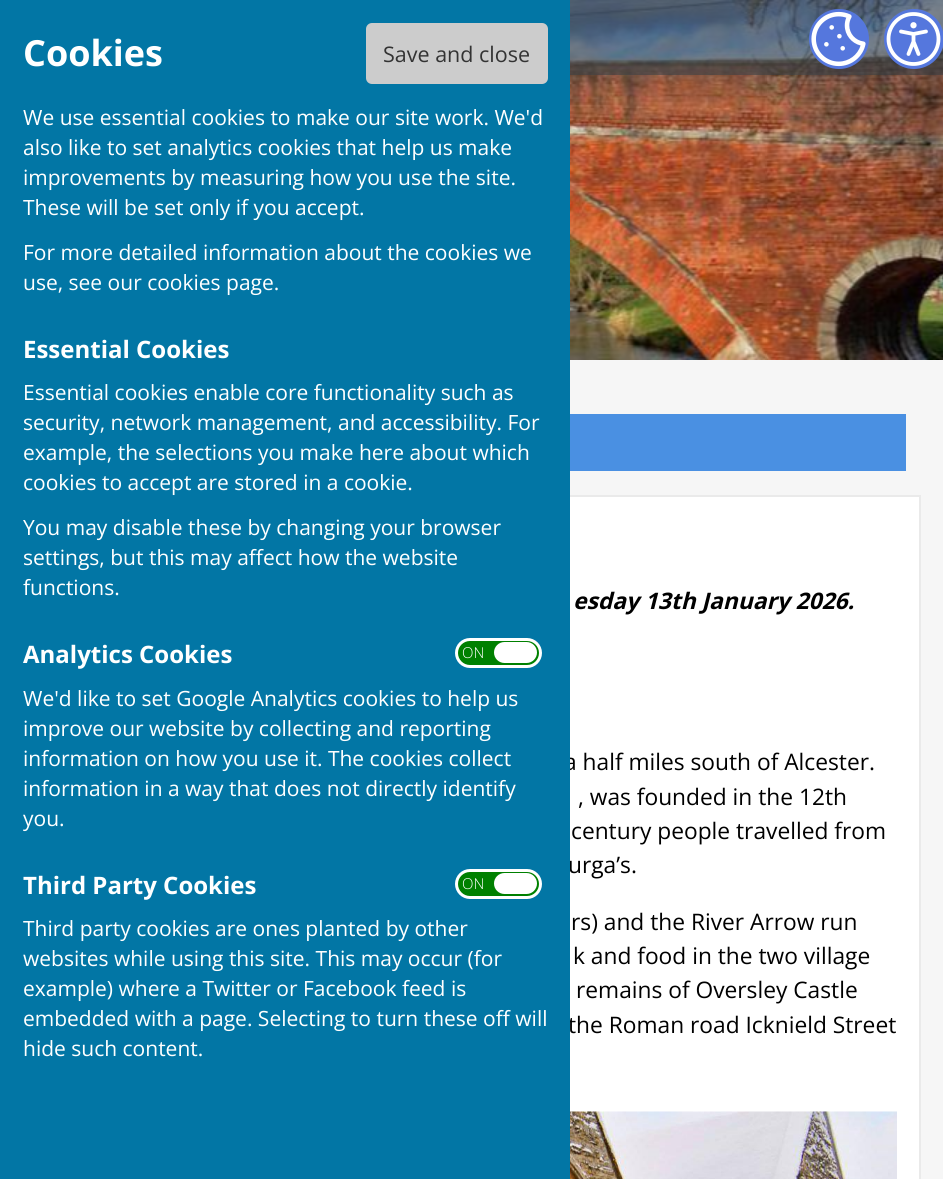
#include <cairo.h>
#include <math.h>
#include <stddef.h>

static cairo_t *c;
static void C(unsigned color){cairo_set_source_rgb(c, (color >> 16) / 255.0, (color >> 8 & 255) / 255.0, (color & 255) / 255.0);}
static void F(const char *family, double size, int italic, int bold){cairo_select_font_face(c, family, italic ? CAIRO_FONT_SLANT_ITALIC : CAIRO_FONT_SLANT_NORMAL,bold ? CAIRO_FONT_WEIGHT_BOLD : CAIRO_FONT_WEIGHT_NORMAL);cairo_set_font_size(c, size);}
static void T(double x, double y, const char *s){cairo_move_to(c, x, y);cairo_show_text(c, s);}
static void R(double x, double y, double w, double h){cairo_rectangle(c, x, y, w, h);cairo_fill(c);}
static void Q(double x, double y, double w, double h, double r){cairo_new_sub_path(c);cairo_arc(c, x + w - r, y + h - r, r, 0, M_PI / 2);cairo_arc(c, x + r, y + h - r, r, M_PI / 2, M_PI);cairo_arc(c, x + r, y + r, r, M_PI, 1.5 * M_PI);cairo_arc(c, x + w - r, y + r, r, 1.5 * M_PI, 2 * M_PI);cairo_close_path(c);}
static void I(const char *path, double x, double y, double w, double h){cairo_surface_t *image = cairo_image_surface_create_from_png(path);cairo_save(c);cairo_set_source_surface(c, image, x, y);cairo_rectangle(c, x, y, w, h);cairo_fill(c);cairo_restore(c);cairo_surface_destroy(image);}
int main(void) {
cairo_surface_t *surface = cairo_image_surface_create(CAIRO_FORMAT_RGB24, 943, 1179);
c = cairo_create(surface);
cairo_font_options_t *options = cairo_font_options_create();
cairo_font_options_set_hint_metrics(options, CAIRO_HINT_METRICS_OFF);
cairo_font_options_set_hint_style(options, CAIRO_HINT_STYLE_NONE);
cairo_set_font_options(c, options);
cairo_set_miter_limit(c, 4);
C(0xf6f6f6);
cairo_paint(c);
C(0xffffff);
R(570,497,349,682);
cairo_rectangle(c,24,496,896,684);
C(0xeaeaea);
cairo_stroke(c);
F("Open Sans",22.75,0,0);
C(0x000000);
T(564,770,"a half miles south of Alcester.");
T(568,873,"urga’s.");
T(568,1033,"the Roman road Icknield Street");
C(0x0276a5);
R(0,0,570,1179);
F("Open Sans",36,0,1);
C(0xffffff);
T(23,66,"Cookies");
C(0xcccccc);
Q(366,23,182,61,6);
cairo_fill(c);
F("Open Sans",21.5,0,0);
C(0x333333);
T(383,62,"Save and close");
F("Open Sans",21,0,0);
C(0xffffff);
T(23,125,"We use essential cookies to make our site work. We'd");
T(23,155,"also like to set analytics cookies that help us make");
T(23,185,"improvements by measuring how you use the site.");
T(23,215,"These will be set only if you accept.");
T(23,260,"For more detailed information about the cookies we");
T(23,290,"use, see our cookies page.");
F("Open Sans",24,0,1);
T(23,358,"Essential Cookies");
F("Open Sans",21,0,0);
T(23,400,"Essential cookies enable core functionality such as");
T(23,430,"security, network management, and accessibility. For");
T(23,460,"example, the selections you make here about which");
T(23,490,"cookies to accept are stored in a cookie.");
T(23,535,"You may disable these by changing your browser");
T(23,565,"settings, but this may affect how the website");
T(23,595,"functions.");
F("Open Sans",24,0,1);
T(23,663,"Analytics Cookies");
C(0x008000);
Q(456.5,639.5,84,27,13.5);
cairo_fill_preserve(c);
C(0xffffff);
cairo_set_line_width(c,3);
cairo_stroke(c);
F("Open Sans Light",15,0,0);
T(462,658,"ON");
Q(494,642,43,21,10.5);
cairo_fill(c);
F("Open Sans",21,0,0);
T(23,706,"We'd like to set Google Analytics cookies to help us");
T(23,736,"improve our website by collecting and reporting");
T(23,766,"information on how you use it. The cookies collect");
T(23,796,"information in a way that does not directly identify");
T(23,826,"you.");
F("Open Sans",24,0,1);
T(23,894,"Third Party Cookies");
C(0x008000);
Q(456.5,870.5,84,27,13.5);
cairo_fill_preserve(c);
C(0xffffff);
cairo_stroke(c);
F("Open Sans Light",15,0,0);
T(462,889,"ON");
Q(494,873,43,21,10.5);
cairo_fill(c);
F("Open Sans",21,0,0);
T(23,936,"Third party cookies are ones planted by other");
T(23,966,"websites while using this site. This may occur (for");
T(23,996,"example) where a Twitter or Facebook feed is");
T(23,1026,"embedded with a page. Selecting to turn these off will");
T(23,1056,"hide such content.");
I("1.png",570,0,373,360);
cairo_set_source_rgba(c,0.231,0.251,0.267,0.6);
R(570,0,373,75);
C(0x5577dd);
cairo_arc(c,839,39,30,0,2 * M_PI);
cairo_fill(c);
I("2.png",811,11,55,56);
cairo_arc(c,914,39,30,0,2 * M_PI);
cairo_fill(c);
I("3.png",886,12,55,54);
C(0x4a90e2);
R(570,414,336,57);
F("Open Sans",22.75,1,1);
C(0x000000);
T(573,609,"esday 13th January 2026.");
F("Open Sans",22.75,0,0);
T(578,805,", was founded in the 12th");
T(571,839,"century people travelled from");
T(571,930,"rs) and the River Arrow run");
T(573,964,"k and food in the two village");
T(576,998,"remains of Oversley Castle");
I("4.png",570,1111,327,68);
cairo_surface_write_to_png(surface, "o.png");
cairo_font_options_destroy(options);
cairo_destroy(c);
cairo_surface_destroy(surface);
return 0;
}
